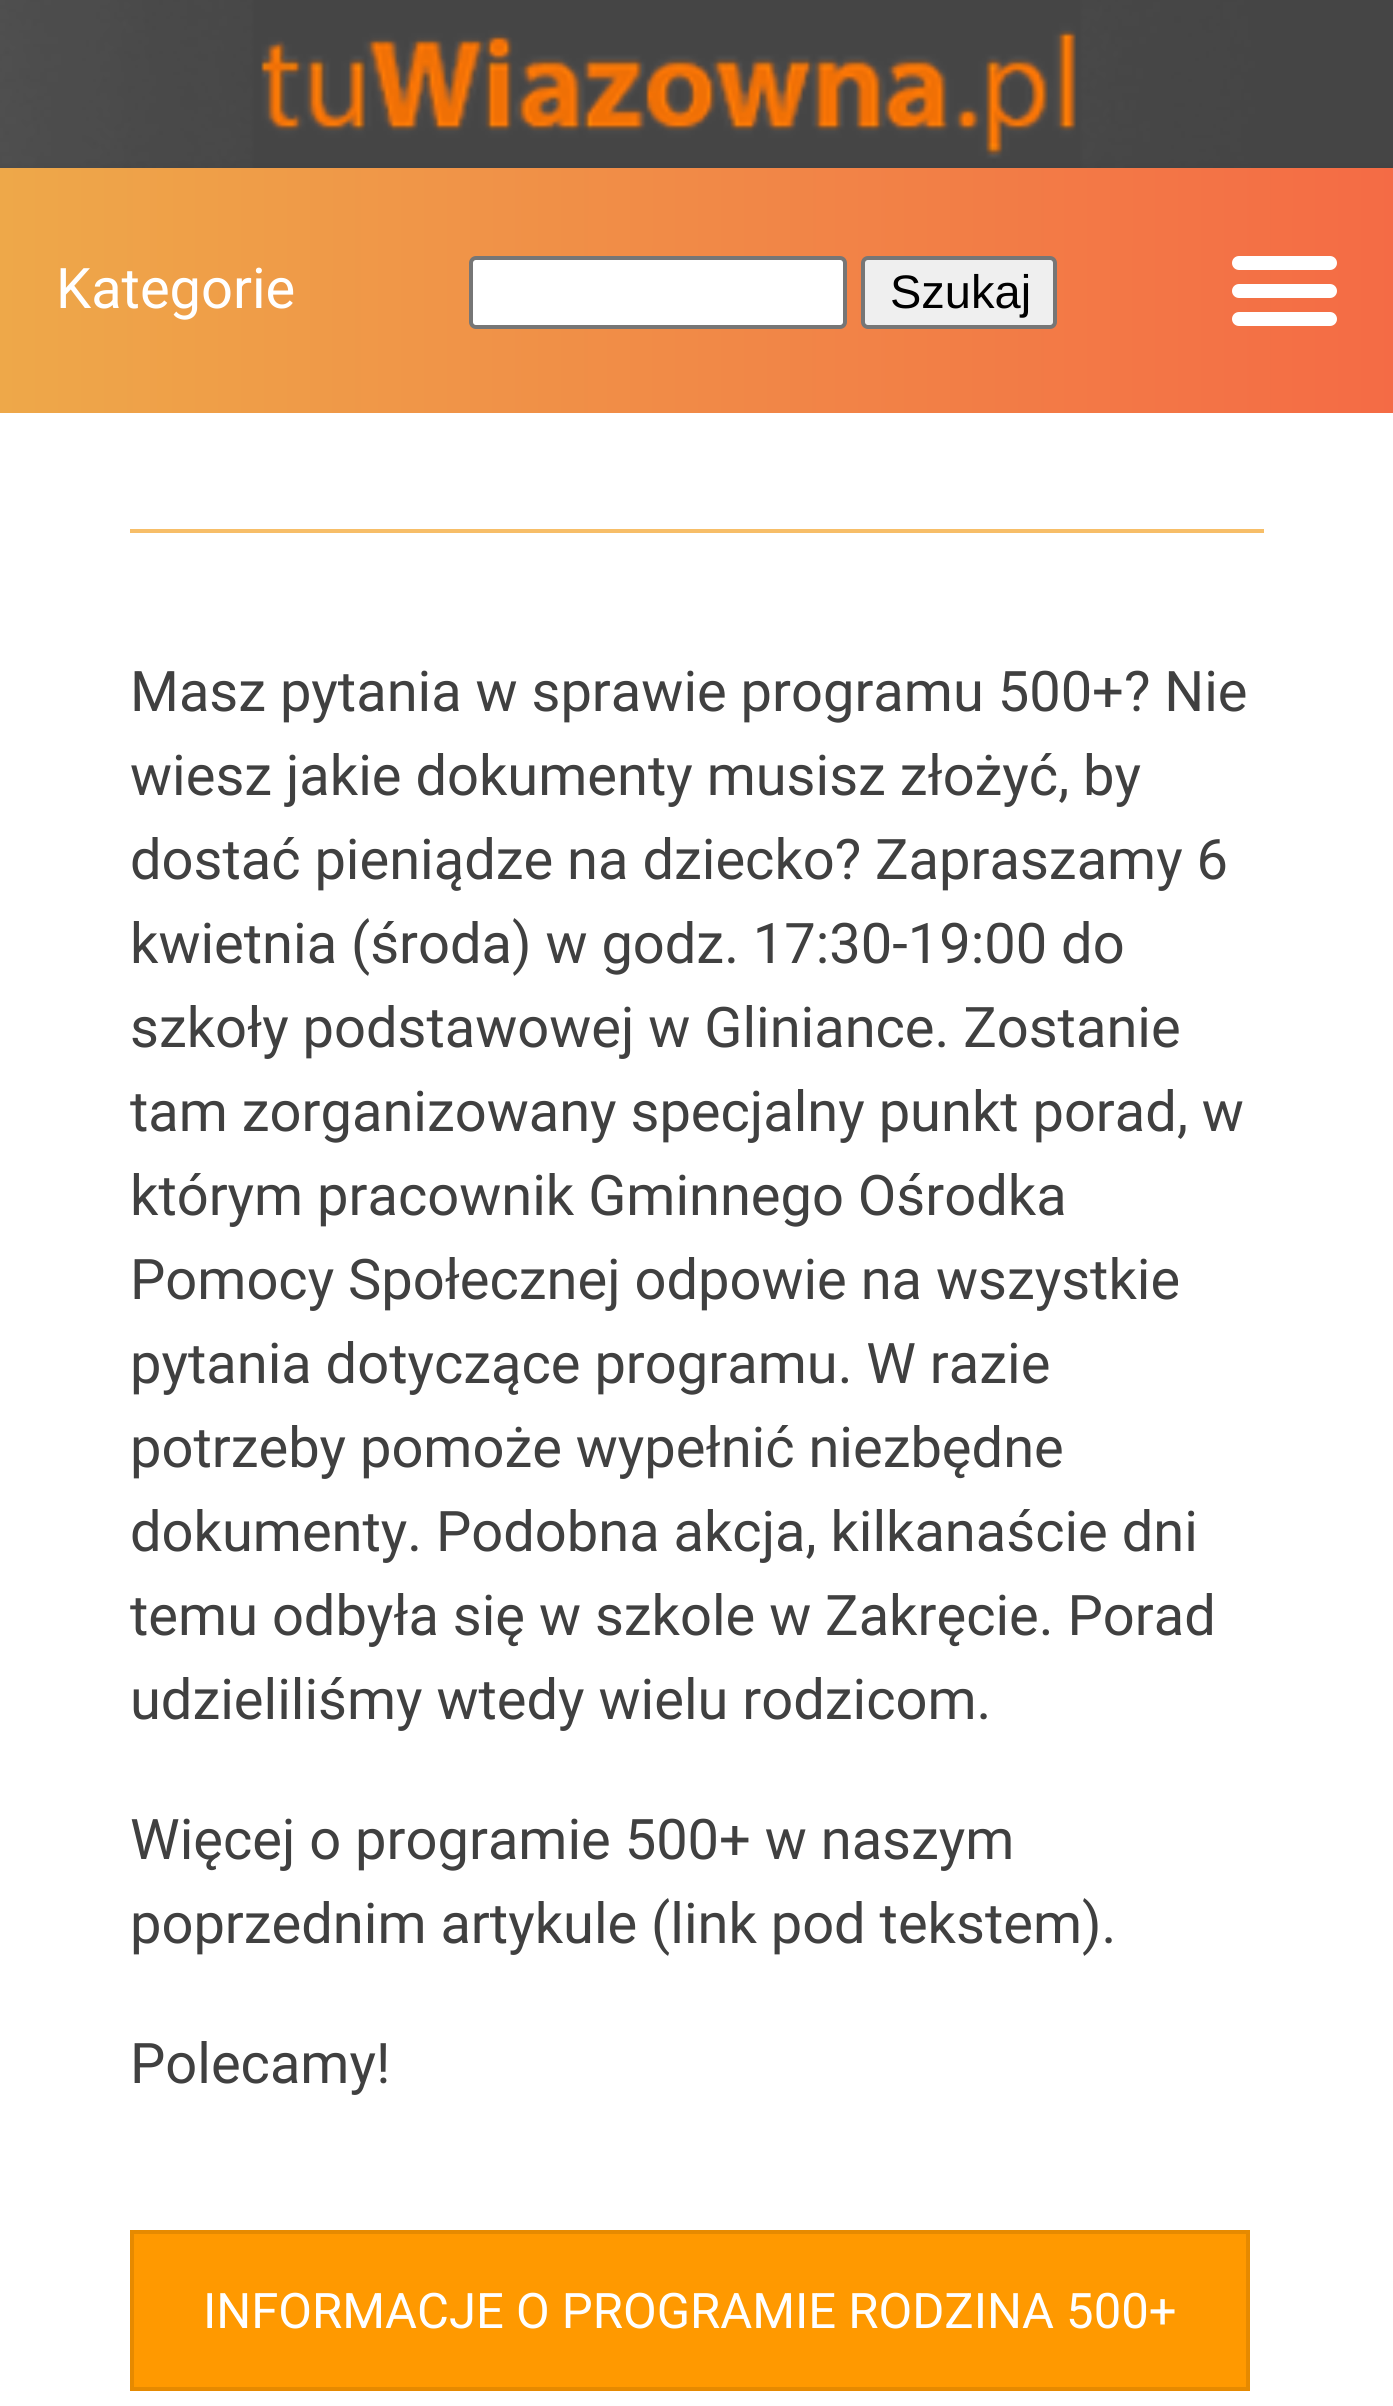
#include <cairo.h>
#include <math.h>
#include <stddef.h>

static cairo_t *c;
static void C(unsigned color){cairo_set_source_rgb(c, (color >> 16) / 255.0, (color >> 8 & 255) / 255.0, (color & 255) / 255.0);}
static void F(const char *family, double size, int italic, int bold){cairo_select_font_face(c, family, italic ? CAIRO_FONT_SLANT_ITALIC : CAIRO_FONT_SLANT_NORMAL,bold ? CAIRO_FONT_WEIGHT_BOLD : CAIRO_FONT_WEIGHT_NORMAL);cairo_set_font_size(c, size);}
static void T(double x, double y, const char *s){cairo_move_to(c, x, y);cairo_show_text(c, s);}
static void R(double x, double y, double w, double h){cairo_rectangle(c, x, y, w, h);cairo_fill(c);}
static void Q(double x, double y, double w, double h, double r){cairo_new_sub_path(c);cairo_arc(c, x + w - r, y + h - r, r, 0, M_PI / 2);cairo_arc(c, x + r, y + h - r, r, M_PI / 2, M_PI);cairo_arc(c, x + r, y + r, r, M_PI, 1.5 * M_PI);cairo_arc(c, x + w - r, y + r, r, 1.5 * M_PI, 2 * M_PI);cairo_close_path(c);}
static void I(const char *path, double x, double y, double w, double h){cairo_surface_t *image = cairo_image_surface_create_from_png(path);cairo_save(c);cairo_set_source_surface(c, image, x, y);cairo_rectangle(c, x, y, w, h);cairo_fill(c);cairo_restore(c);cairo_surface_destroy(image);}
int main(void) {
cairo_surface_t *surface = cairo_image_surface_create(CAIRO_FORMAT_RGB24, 1393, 2406);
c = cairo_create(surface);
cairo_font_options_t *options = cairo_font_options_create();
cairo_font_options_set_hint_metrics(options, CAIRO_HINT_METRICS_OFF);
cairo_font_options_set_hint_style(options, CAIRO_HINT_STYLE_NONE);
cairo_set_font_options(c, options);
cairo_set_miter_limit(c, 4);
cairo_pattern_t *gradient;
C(0xffffff);
cairo_paint(c);
I("1.png",0,0,1393,168);
gradient = cairo_pattern_create_linear(1393,291,0,290);
cairo_pattern_add_color_stop_rgba(gradient,0,0.957,0.42,0.271,1);
cairo_pattern_add_color_stop_rgba(gradient,1,0.933,0.659,0.286,1);
cairo_set_source(c,gradient);
cairo_pattern_destroy(gradient);
R(0,168,1393,245);
F("Roboto",56,0,0);
C(0xffffff);
T(56,308,"Kategorie");
Q(471,258,374,69,5);
cairo_fill_preserve(c);
C(0x767676);
cairo_set_line_width(c,4);
cairo_stroke(c);
C(0xefefef);
Q(863,258,192,69,5);
cairo_fill_preserve(c);
C(0x767676);
cairo_stroke(c);
F("Liberation Sans",47,0,0);
C(0x000000);
T(890,308,"Szukaj");
C(0xffffff);
Q(1232,284,105,14,7);
cairo_fill(c);
Q(1232,256,105,14,7);
cairo_fill(c);
Q(1232,312,105,14,7);
cairo_fill(c);
C(0xf7be68);
R(130,529,1134,4);
F("Roboto",56,0,0);
C(0x404040);
T(130,711,"Masz pytania w sprawie programu 500+? Nie");
T(130,795,"wiesz jakie dokumenty musisz złożyć, by");
T(130,879,"dostać pieniądze na dziecko? Zapraszamy 6");
T(130,963,"kwietnia (środa) w godz. 17:30-19:00 do");
T(130,1047,"szkoły podstawowej w Gliniance. Zostanie");
T(130,1131,"tam zorganizowany specjalny punkt porad, w");
T(130,1215,"którym pracownik Gminnego Ośrodka");
T(130,1299,"Pomocy Społecznej odpowie na wszystkie");
T(130,1383,"pytania dotyczące programu. W razie");
T(130,1467,"potrzeby pomoże wypełnić niezbędne");
T(130,1551,"dokumenty. Podobna akcja, kilkanaście dni");
T(130,1635,"temu odbyła się w szkole w Zakręcie. Porad");
T(130,1719,"udzieliliśmy wtedy wielu rodzicom.");
T(130,1859,"Więcej o programie 500+ w naszym");
T(130,1943,"poprzednim artykule (link pod tekstem).");
T(130,2083,"Polecamy!");
C(0xff9900);
cairo_rectangle(c,132,2232,1116,157);
cairo_fill_preserve(c);
C(0xe68a00);
cairo_stroke(c);
F("Roboto",49,0,0);
C(0xffffff);
T(203,2328,"INFORMACJE O PROGRAMIE RODZINA 500+");
cairo_surface_write_to_png(surface, "o.png");
cairo_font_options_destroy(options);
cairo_destroy(c);
cairo_surface_destroy(surface);
return 0;
}
